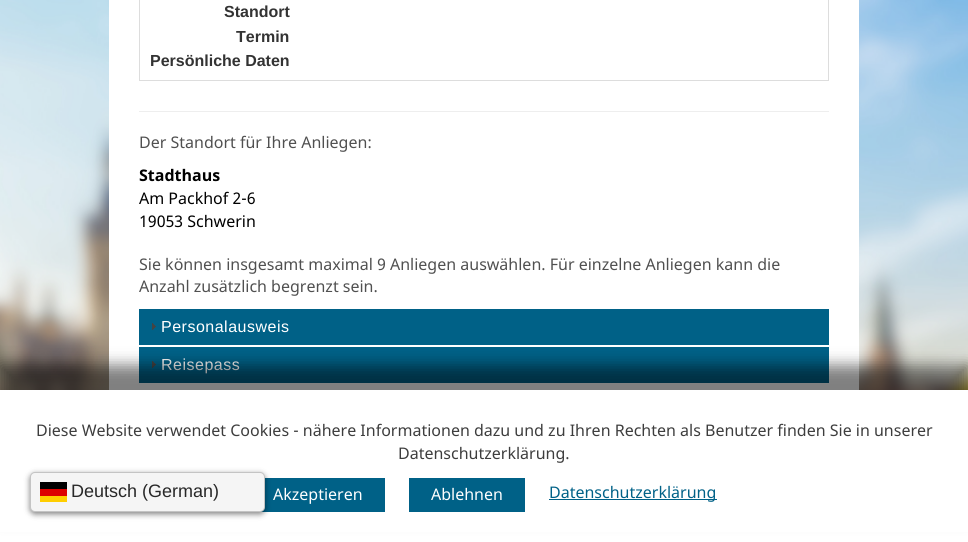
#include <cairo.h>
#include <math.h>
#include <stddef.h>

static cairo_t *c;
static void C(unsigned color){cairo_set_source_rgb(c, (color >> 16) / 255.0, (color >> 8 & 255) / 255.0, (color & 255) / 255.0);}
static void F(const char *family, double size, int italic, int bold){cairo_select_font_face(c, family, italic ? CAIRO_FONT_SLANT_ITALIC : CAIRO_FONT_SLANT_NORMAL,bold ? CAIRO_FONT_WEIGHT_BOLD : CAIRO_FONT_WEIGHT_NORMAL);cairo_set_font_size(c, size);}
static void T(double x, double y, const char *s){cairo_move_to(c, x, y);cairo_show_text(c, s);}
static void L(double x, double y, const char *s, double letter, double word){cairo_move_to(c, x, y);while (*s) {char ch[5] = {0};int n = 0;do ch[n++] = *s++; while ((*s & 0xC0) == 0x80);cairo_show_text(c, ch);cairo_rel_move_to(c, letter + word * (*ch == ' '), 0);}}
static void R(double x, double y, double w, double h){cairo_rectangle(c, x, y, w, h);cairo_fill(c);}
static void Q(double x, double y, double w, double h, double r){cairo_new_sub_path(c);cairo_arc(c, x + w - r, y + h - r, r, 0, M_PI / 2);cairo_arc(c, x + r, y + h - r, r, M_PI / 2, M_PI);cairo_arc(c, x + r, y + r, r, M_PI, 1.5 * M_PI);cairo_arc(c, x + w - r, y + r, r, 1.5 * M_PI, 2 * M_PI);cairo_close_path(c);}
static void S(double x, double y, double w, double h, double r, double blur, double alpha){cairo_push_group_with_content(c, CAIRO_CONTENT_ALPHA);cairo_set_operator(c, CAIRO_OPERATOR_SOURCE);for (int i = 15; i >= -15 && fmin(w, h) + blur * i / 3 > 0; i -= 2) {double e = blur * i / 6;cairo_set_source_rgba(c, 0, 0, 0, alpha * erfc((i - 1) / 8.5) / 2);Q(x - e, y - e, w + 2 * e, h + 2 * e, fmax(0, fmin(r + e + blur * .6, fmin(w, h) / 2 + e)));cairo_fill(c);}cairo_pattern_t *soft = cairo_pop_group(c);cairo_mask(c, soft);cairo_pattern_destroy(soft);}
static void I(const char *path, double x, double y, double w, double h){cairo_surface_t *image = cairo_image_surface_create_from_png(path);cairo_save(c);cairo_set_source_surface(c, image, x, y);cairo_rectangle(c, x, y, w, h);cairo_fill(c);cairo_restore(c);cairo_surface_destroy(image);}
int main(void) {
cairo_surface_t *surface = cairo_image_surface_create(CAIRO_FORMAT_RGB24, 968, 542);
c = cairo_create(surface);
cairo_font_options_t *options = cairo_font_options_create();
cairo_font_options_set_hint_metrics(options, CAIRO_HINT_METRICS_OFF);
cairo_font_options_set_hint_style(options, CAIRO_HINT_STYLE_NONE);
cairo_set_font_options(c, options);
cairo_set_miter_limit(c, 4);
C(0xffffff);
cairo_paint(c);
I("1.png",0,0,968,390);
C(0xffffff);
R(109,0,750,390);
C(0xdddddd);
R(828,0,1,81);
R(139,80,690,1);
R(139,0,1,81);
F("Liberation Sans",16,0,1);
C(0x333333);
T(224,17,"Standort");
T(236,42,"Termin");
T(150,66,"Persönliche Daten");
C(0xeeeeee);
R(139,111,690,1);
F("Noto Sans",16,0,0);
C(0x505050);
T(139,148,"Der Standort für Ihre Anliegen:");
F("Noto Sans",16,0,1);
C(0x000000);
T(139,181,"Stadthaus");
F("Noto Sans",16,0,0);
T(139,204,"Am Packhof 2-6");
T(139,227,"19053 Schwerin");
C(0x505050);
T(139,270,"Sie können insgesamt maximal 9 Anliegen auswählen. Für einzelne Anliegen kann die");
T(139,292,"Anzahl zusätzlich begrenzt sein.");
C(0x006187);
R(139,309,690,36);
I("2.png",152,323,4,7);
F("Liberation Sans",16,0,0);
C(0xffffff);
L(161,332,"Personalausweis",.5,0);
C(0x006187);
R(139,347,690,36);
I("2.png",152,361,4,7);
C(0xffffff);
L(161,370,"Reisepass",.5,0);
C(0x000000);
S(0,365,968,152,0,7.5,.5);
C(0xffffff);
R(0,390,968,142);
F("Noto Sans",16,0,0);
C(0x3d3d3d);
T(36,436,"Diese Website verwendet Cookies - nähere Informationen dazu und zu Ihren Rechten als Benutzer finden Sie in unserer");
T(398,459,"Datenschutzerklärung.");
C(0x006187);
R(260,478,125,34);
C(0xffffff);
T(273,500,"Akzeptieren");
C(0x006187);
R(409,478,116,34);
C(0xffffff);
T(431,500,"Ablehnen");
C(0x006187);
R(549,499,168,1);
T(549,498,"Datenschutzerklärung");
C(0x000000);
S(30,474,235,40,5,3,.5);
C(0xf5f5f5);
Q(30,472,235,40,5);
cairo_fill(c);
Q(30.5,472.5,234,39,4.5);
cairo_set_source_rgba(c,0,0,0,0.2);
cairo_set_line_width(c,1);
cairo_stroke(c);
C(0xffce00);
R(40,496,27,6);
C(0x000000);
R(40,482,27,7);
C(0xdd0000);
R(40,489,27,7);
F("Liberation Sans",18,0,0);
C(0x282828);
T(71,497,"Deutsch (German)");
cairo_surface_write_to_png(surface, "o.png");
cairo_font_options_destroy(options);
cairo_destroy(c);
cairo_surface_destroy(surface);
return 0;
}
